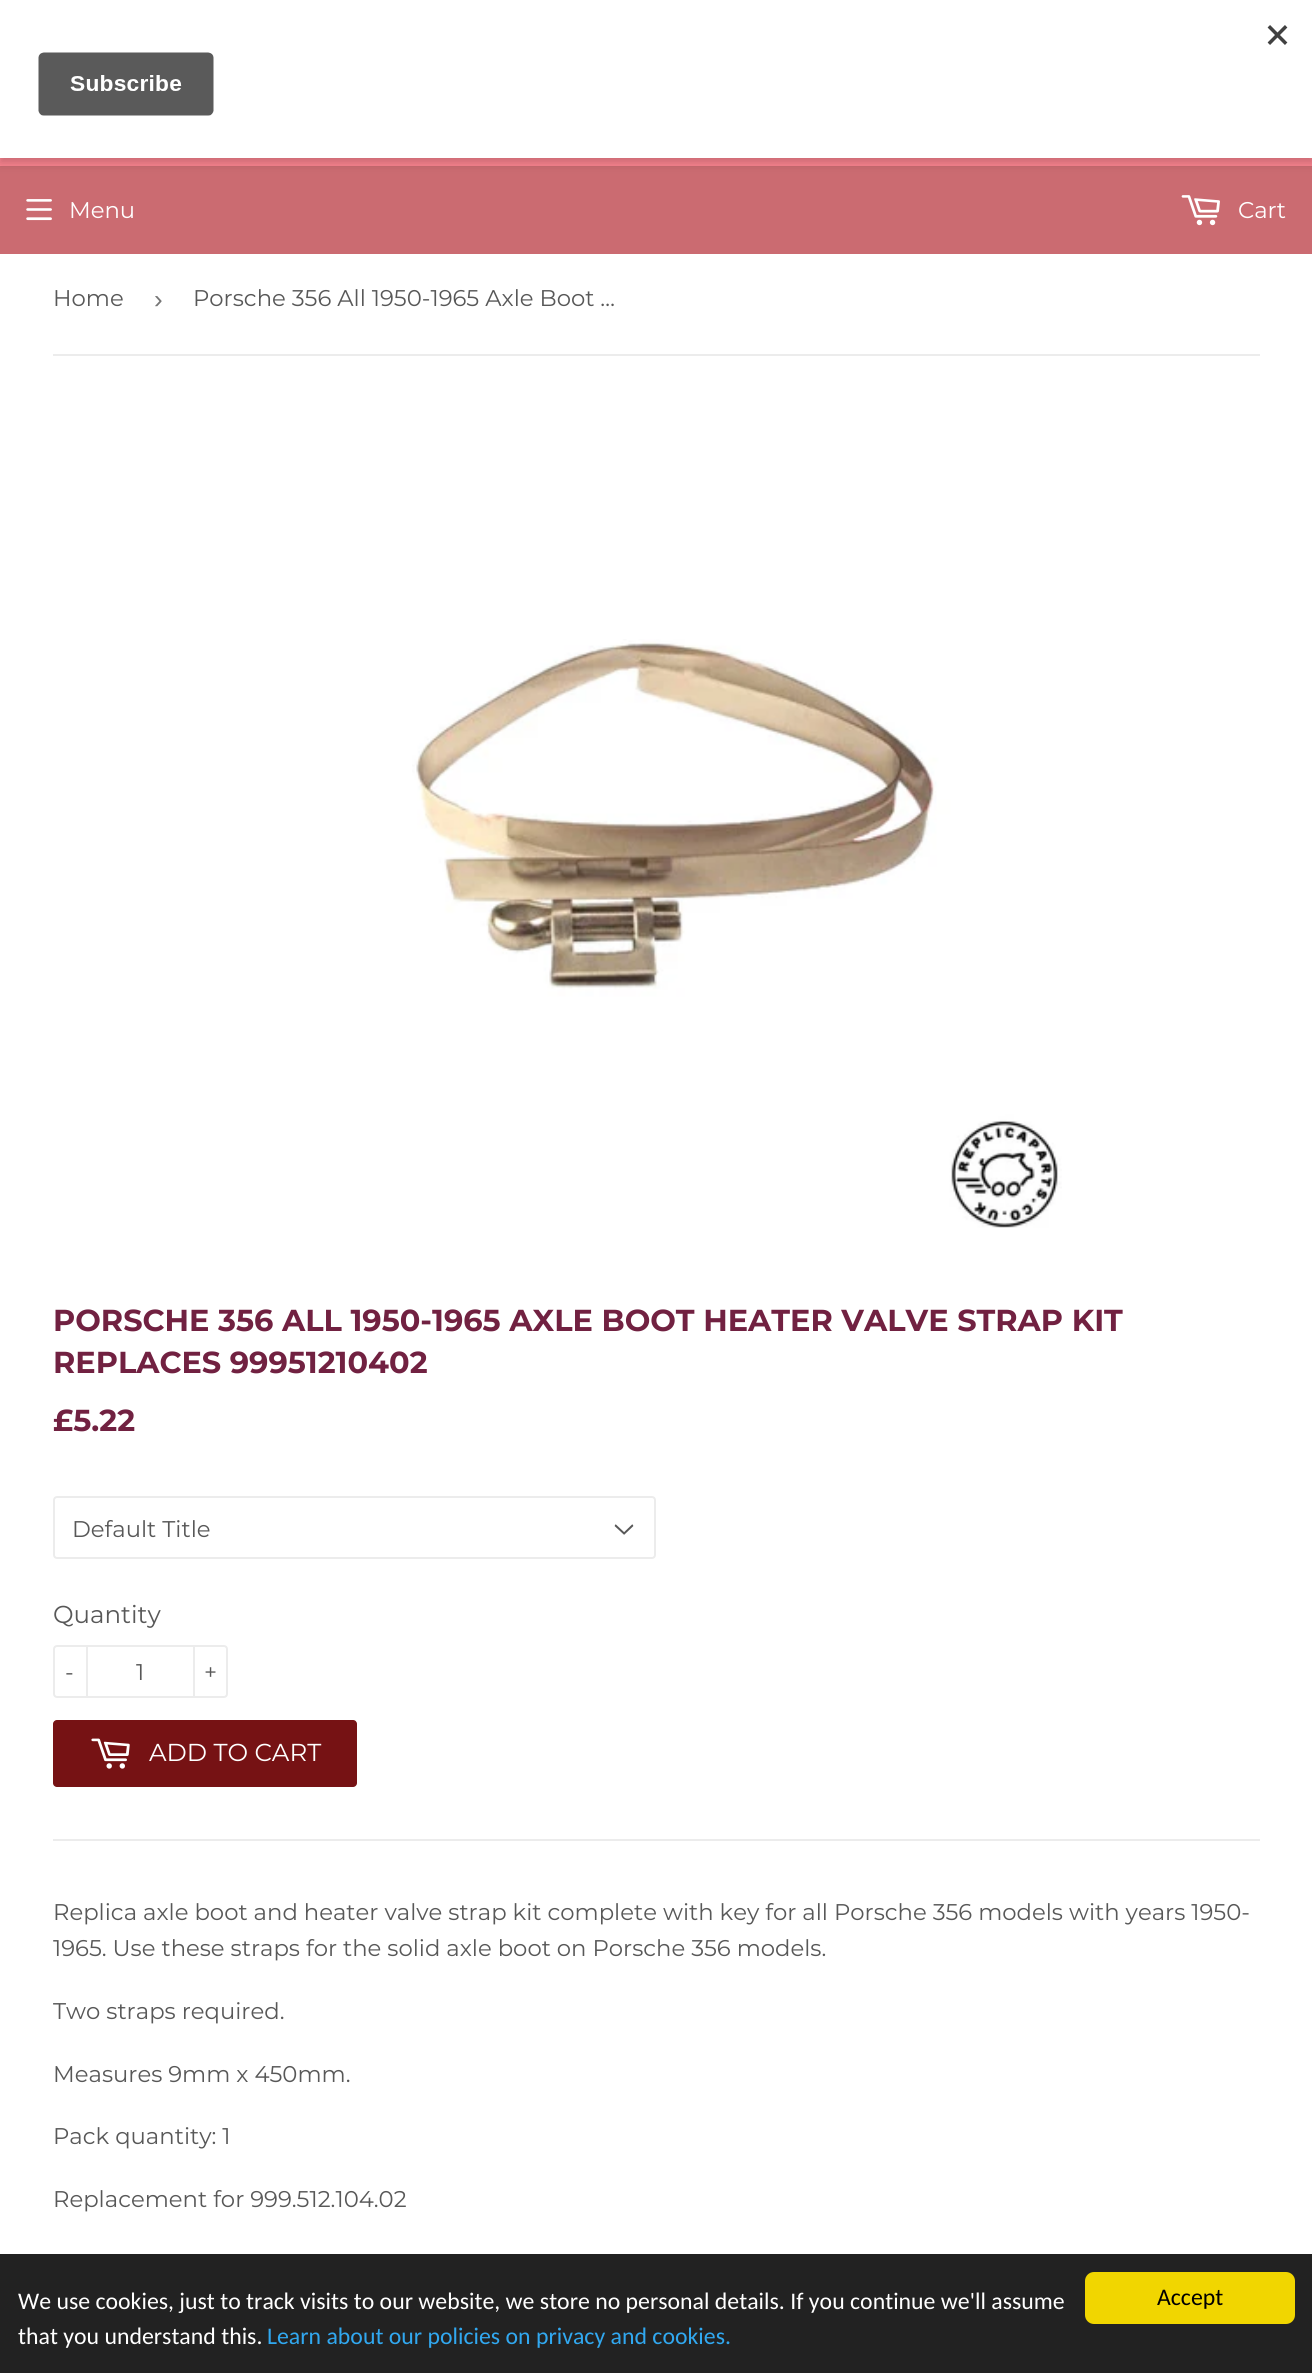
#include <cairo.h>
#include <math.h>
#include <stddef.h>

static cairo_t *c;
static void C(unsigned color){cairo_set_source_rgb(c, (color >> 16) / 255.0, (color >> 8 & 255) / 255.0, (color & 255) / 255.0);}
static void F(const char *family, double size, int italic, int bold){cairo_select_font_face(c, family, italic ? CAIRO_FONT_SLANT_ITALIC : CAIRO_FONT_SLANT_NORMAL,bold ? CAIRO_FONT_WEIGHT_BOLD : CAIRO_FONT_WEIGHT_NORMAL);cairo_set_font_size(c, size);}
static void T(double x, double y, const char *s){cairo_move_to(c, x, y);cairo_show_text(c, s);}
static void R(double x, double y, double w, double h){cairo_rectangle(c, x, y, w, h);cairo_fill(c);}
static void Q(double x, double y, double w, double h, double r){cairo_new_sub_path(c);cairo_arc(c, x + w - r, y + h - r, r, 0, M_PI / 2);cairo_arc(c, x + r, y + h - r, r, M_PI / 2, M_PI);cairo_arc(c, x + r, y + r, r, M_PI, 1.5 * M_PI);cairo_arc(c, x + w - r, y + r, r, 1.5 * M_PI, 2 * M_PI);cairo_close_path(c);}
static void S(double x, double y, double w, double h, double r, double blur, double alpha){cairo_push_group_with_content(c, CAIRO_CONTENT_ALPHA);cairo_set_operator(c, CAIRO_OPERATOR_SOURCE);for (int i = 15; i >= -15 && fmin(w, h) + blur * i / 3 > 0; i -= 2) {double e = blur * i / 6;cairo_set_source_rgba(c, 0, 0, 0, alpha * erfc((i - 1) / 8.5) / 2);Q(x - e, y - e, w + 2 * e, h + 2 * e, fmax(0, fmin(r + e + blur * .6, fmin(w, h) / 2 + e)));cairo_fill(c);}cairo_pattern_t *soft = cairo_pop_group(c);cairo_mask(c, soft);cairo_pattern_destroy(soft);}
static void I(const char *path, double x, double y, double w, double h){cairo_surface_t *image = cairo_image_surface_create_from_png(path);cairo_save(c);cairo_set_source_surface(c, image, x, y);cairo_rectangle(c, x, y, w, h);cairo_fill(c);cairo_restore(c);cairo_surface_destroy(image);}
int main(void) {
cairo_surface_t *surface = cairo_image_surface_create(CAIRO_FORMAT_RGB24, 1312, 2373);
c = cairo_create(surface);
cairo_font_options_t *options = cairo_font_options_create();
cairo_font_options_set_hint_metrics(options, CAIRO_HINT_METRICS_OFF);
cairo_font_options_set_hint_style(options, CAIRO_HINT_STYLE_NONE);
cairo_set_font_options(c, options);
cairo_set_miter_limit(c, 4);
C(0xffffff);
cairo_paint(c);
C(0xfc8490);
R(0,158,1312,8);
C(0xcb6b71);
R(0,166,1312,88);
C(0x000000);
S(0,5,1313,158,0,5,.2);
C(0xffffff);
R(0,0,1312,158);
I("1.png",38,25,1250,91);
I("2.png",26,199,26,22);
F("Montserrat",22.75,0,0);
T(69,218,"Menu");
I("3.png",1181,195,39,31);
T(1238,218,"Cart");
C(0xececec);
R(53,354,1207,2);
C(0x585858);
T(53,306,"Home");
F("Liberation Sans",26,0,0);
C(0x767676);
T(154,308,"›");
F("Montserrat",22.75,0,0);
C(0x585858);
T(193,306,"Porsche 356 All 1950-1965 Axle Boot …");
I("4.png",412,639,650,589);
F("Montserrat",30.35,0,1);
C(0x712141);
T(53,1331,"PORSCHE 356 ALL 1950-1965 AXLE BOOT HEATER VALVE STRAP KIT");
T(53,1373,"REPLACES 99951210402");
T(53,1431,"£5.22");
I("5.png",614,1524,20,11);
Q(54,1497,601,61,3);
C(0xececec);
cairo_stroke(c);
F("Montserrat",22.75,0,0);
C(0x585858);
T(72,1537,"Default Title");
F("Montserrat",24.5,0,0);
T(53,1623,"Quantity");
Q(54,1646,173,51,3);
C(0xececec);
cairo_stroke(c);
R(86,1645,2,53);
F("Montserrat",22.75,0,0);
C(0x585858);
T(65,1680,"-");
T(136,1680,"1");
C(0xececec);
R(193,1645,2,53);
C(0x585858);
T(204,1680,"+");
C(0x761214);
Q(53,1720,304,67,4);
cairo_fill(c);
I("6.png",91,1738,39,31);
F("Montserrat",24.5,0,0);
C(0xffffff);
T(149,1761,"ADD TO CART");
C(0xececec);
R(53,1839,1207,2);
F("Montserrat",22.75,0,0);
C(0x585858);
T(53,1920,"Replica axle boot and heater valve strap kit complete with key for all Porsche 356 models with years 1950-");
T(53,1956,"1965. Use these straps for the solid axle boot on Porsche 356 models.");
T(53,2019,"Two straps required.");
T(53,2082,"Measures 9mm x 450mm.");
T(53,2144,"Pack quantity: 1");
T(53,2207,"Replacement for 999.512.104.02");
C(0x222222);
R(0,2254,1312,119);
F("Carlito",23.8,0,0);
C(0xffffff);
T(18,2309,"We use cookies, just to track visits to our website, we store no personal details. If you continue we'll assume");
T(18,2344,"that you understand this.");
C(0x31a8f0);
T(267,2344,"Learn about our policies on privacy and cookies.");
C(0xf1d600);
Q(1085,2272,210,52,9);
cairo_fill(c);
C(0x000000);
T(1157,2305,"Accept");
cairo_surface_write_to_png(surface, "o.png");
cairo_font_options_destroy(options);
cairo_destroy(c);
cairo_surface_destroy(surface);
return 0;
}
